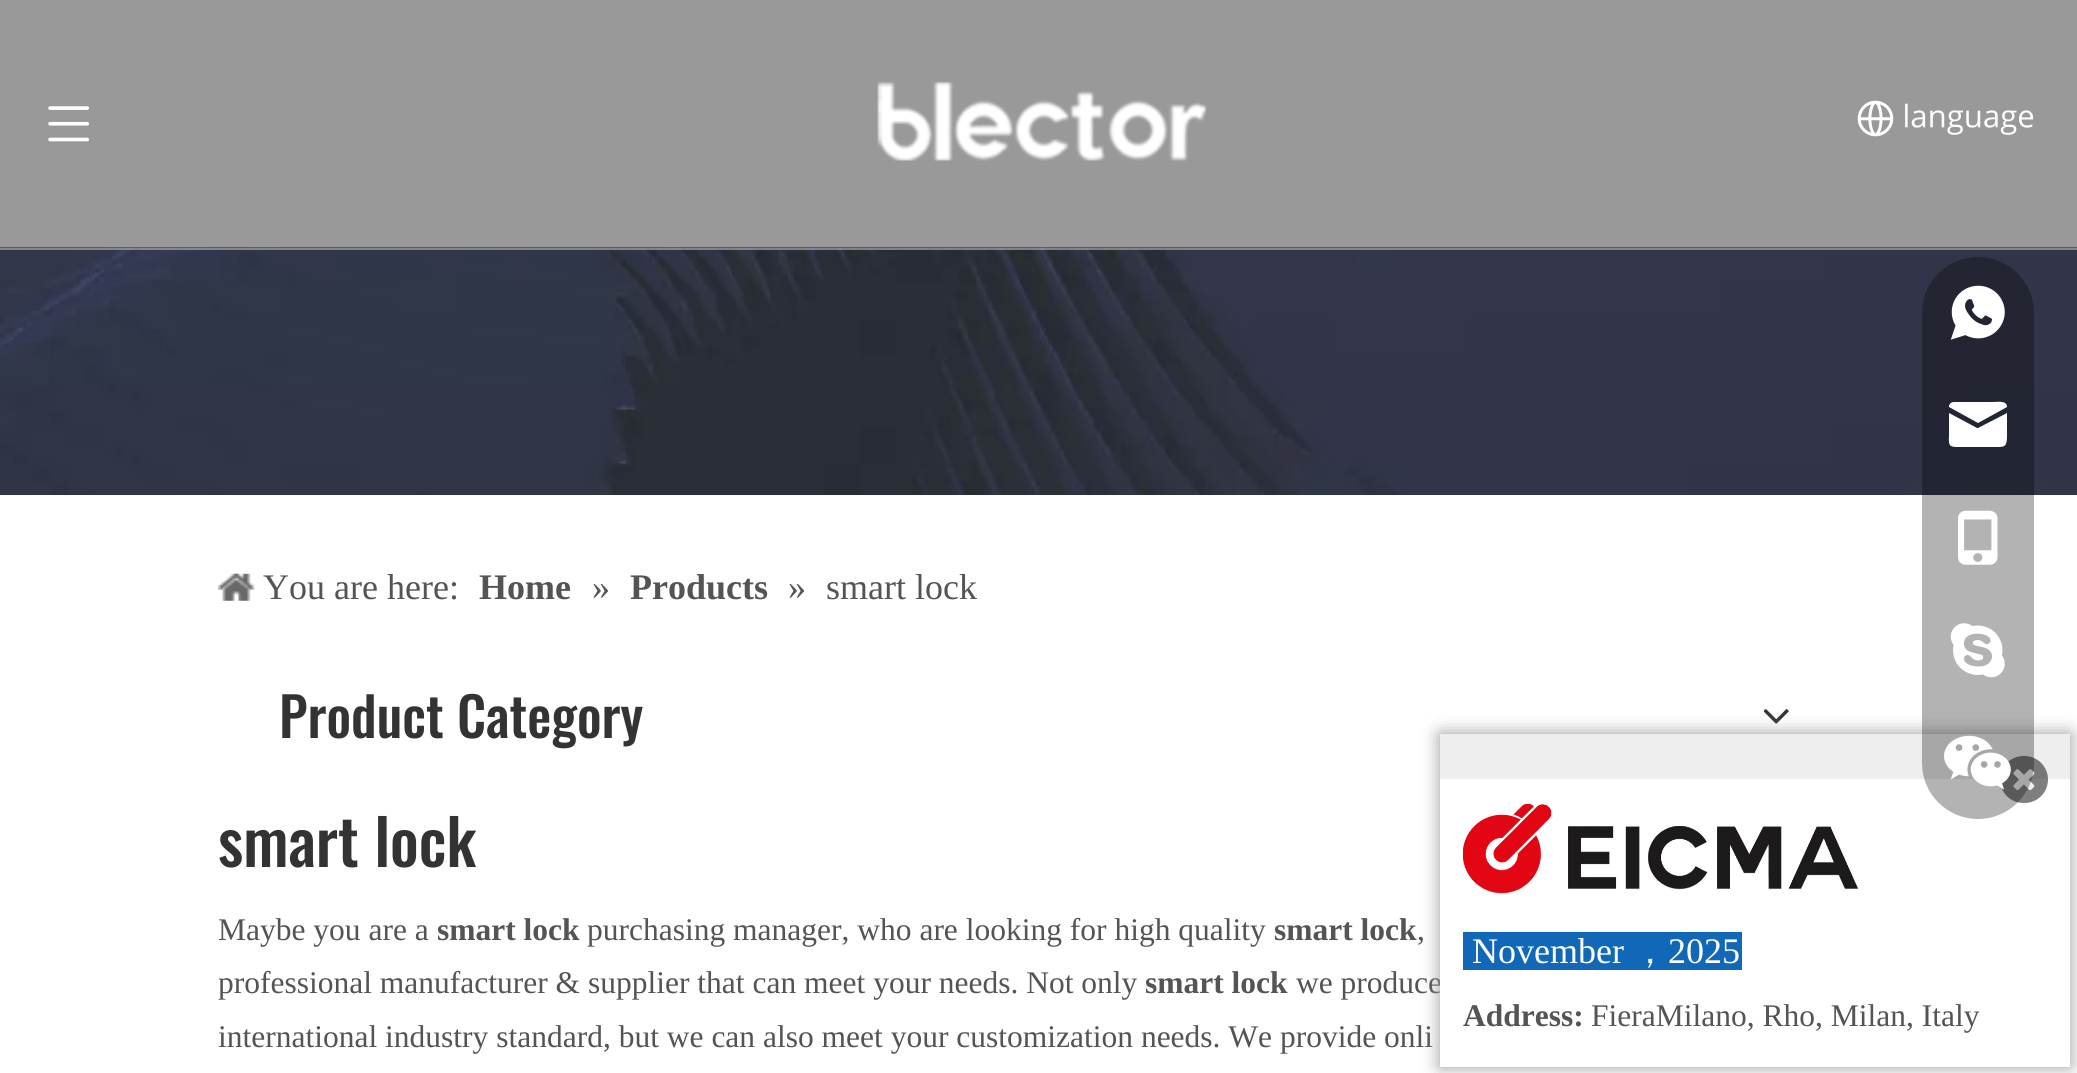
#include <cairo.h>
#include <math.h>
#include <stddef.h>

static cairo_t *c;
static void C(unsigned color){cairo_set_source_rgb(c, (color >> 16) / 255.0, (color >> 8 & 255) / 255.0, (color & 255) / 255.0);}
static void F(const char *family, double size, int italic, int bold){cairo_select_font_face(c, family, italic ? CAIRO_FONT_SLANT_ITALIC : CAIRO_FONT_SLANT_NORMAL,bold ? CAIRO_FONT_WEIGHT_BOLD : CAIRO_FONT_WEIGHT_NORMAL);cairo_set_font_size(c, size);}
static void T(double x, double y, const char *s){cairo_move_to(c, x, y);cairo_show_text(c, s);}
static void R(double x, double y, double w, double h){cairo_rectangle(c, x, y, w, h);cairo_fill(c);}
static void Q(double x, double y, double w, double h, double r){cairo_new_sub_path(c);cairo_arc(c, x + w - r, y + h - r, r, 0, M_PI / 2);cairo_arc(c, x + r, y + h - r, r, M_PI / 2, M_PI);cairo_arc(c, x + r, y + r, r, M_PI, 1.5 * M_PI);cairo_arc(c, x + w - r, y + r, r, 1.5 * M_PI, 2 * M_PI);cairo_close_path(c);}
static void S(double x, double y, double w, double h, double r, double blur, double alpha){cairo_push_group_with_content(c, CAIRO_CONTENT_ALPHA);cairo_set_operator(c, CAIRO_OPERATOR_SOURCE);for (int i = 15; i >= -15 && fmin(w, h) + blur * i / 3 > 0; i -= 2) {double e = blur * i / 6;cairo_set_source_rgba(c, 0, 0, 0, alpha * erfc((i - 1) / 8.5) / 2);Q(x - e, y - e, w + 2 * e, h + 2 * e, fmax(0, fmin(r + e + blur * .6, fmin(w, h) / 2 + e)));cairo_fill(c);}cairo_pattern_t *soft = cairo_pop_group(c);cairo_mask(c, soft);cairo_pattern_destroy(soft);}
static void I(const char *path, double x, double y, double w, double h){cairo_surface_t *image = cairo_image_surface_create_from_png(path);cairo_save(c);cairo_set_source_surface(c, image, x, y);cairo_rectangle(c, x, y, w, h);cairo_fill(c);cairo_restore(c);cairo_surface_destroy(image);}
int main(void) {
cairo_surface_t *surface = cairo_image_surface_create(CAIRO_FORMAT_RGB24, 2077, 1073);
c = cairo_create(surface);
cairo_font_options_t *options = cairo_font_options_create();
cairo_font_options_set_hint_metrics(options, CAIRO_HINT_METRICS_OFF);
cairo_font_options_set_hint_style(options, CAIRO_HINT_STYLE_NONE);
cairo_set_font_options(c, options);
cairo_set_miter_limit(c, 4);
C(0xffffff);
cairo_paint(c);
I("4.png",0,247,2077,248);
cairo_set_source_rgba(c,0,0,0,0.4);
R(0,0,2077,250);
cairo_set_source_rgba(c,1,1,1,0.45);
R(0,248,2077,2);
I("1.png",877,81,330,80);
I("2.png",48,106,41,36);
I("3.png",1857,100,177,37);
I("5.png",218,573,37,28);
F("Liberation Serif",36,0,0);
C(0x545454);
T(263,599,"You are here:");
F("Liberation Serif",36,0,1);
T(479,599,"Home");
F("Liberation Serif",36,0,0);
T(592,599,"»");
F("Liberation Serif",36,0,1);
T(630,599,"Products");
F("Liberation Serif",36,0,0);
T(788,599,"»");
T(826,599,"smart lock");
F("Oswald Medium",54,0,0);
C(0x333333);
T(279,738,"Product Category");
I("6.png",1763,709,26,15);
F("Oswald Medium",63,0,0);
T(218,867,"smart lock");
F("Liberation Serif",31.5,0,0);
C(0x545454);
T(218,940,"Maybe you are a");
F("Liberation Serif",31.5,0,1);
T(437,940,"smart lock");
F("Liberation Serif",31.5,0,0);
T(587,940,"purchasing manager, who are looking for high quality");
F("Liberation Serif",31.5,0,1);
T(1274,940,"smart lock");
F("Liberation Serif",31.5,0,0);
T(1417,940,",");
T(218,993,"professional manufacturer & supplier that can meet your needs. Not only");
F("Liberation Serif",31.5,0,1);
T(1145,993,"smart lock");
F("Liberation Serif",31.5,0,0);
T(1296,993,"we produce");
T(218,1047,"international industry standard, but we can also meet your customization needs. We provide onli");
C(0x999999);
S(1440,734,630,333,0,9,1);
C(0xeeeeee);
R(1440,734,630,45);
C(0xffffff);
R(1440,779,630,288);
cairo_set_source_rgba(c,0,0,0,0.5);
Q(2000,756,48,47,23.5);
cairo_fill(c);
I("11.png",2013,769,22,21);
cairo_set_source_rgba(c,0,0,0,0.3);
Q(1922,257,112,562,56);
cairo_fill(c);
I("7.png",1950,285,55,55);
C(0xffffff);
cairo_new_path(c);
cairo_move_to(c,1954,402);
cairo_line_to(c,1993,402);
cairo_curve_to(c,1997,402,2007,400,2007,407);
cairo_line_to(c,1978,423);
cairo_line_to(c,1949,407);
cairo_curve_to(c,1949,404,1951,402,1954,402);
cairo_close_path(c);
cairo_move_to(c,1949,413);
cairo_line_to(c,1949,436);
cairo_curve_to(c,1948,448,1951,447,1962,447);
cairo_line_to(c,1993,447);
cairo_curve_to(c,2004,447,2007,448,2007,436);
cairo_line_to(c,2007,413);
cairo_line_to(c,1978,428);
cairo_line_to(c,1977,428);
cairo_close_path(c);
cairo_fill(c);
I("8.png",1958,510,40,55);
I("9.png",1950,623,55,55);
I("10.png",1944,735,67,55);
I("12.png",1463,803,396,91);
C(0x1167b8);
R(1463,932,279,38);
F("Liberation Serif",36,0,0);
C(0xffffff);
T(1472,963,"November");
F("WenQuanYi Zen Hei Medium",36,0,0);
T(1632,963,"，");
F("Liberation Serif",36,0,0);
T(1668,963,"2025");
F("Liberation Serif",31.5,0,1);
C(0x545454);
T(1463,1026,"Address:");
F("Liberation Serif",31.5,0,0);
T(1591,1026,"FieraMilano, Rho, Milan, Italy");
cairo_surface_write_to_png(surface, "o.png");
cairo_font_options_destroy(options);
cairo_destroy(c);
cairo_surface_destroy(surface);
return 0;
}
